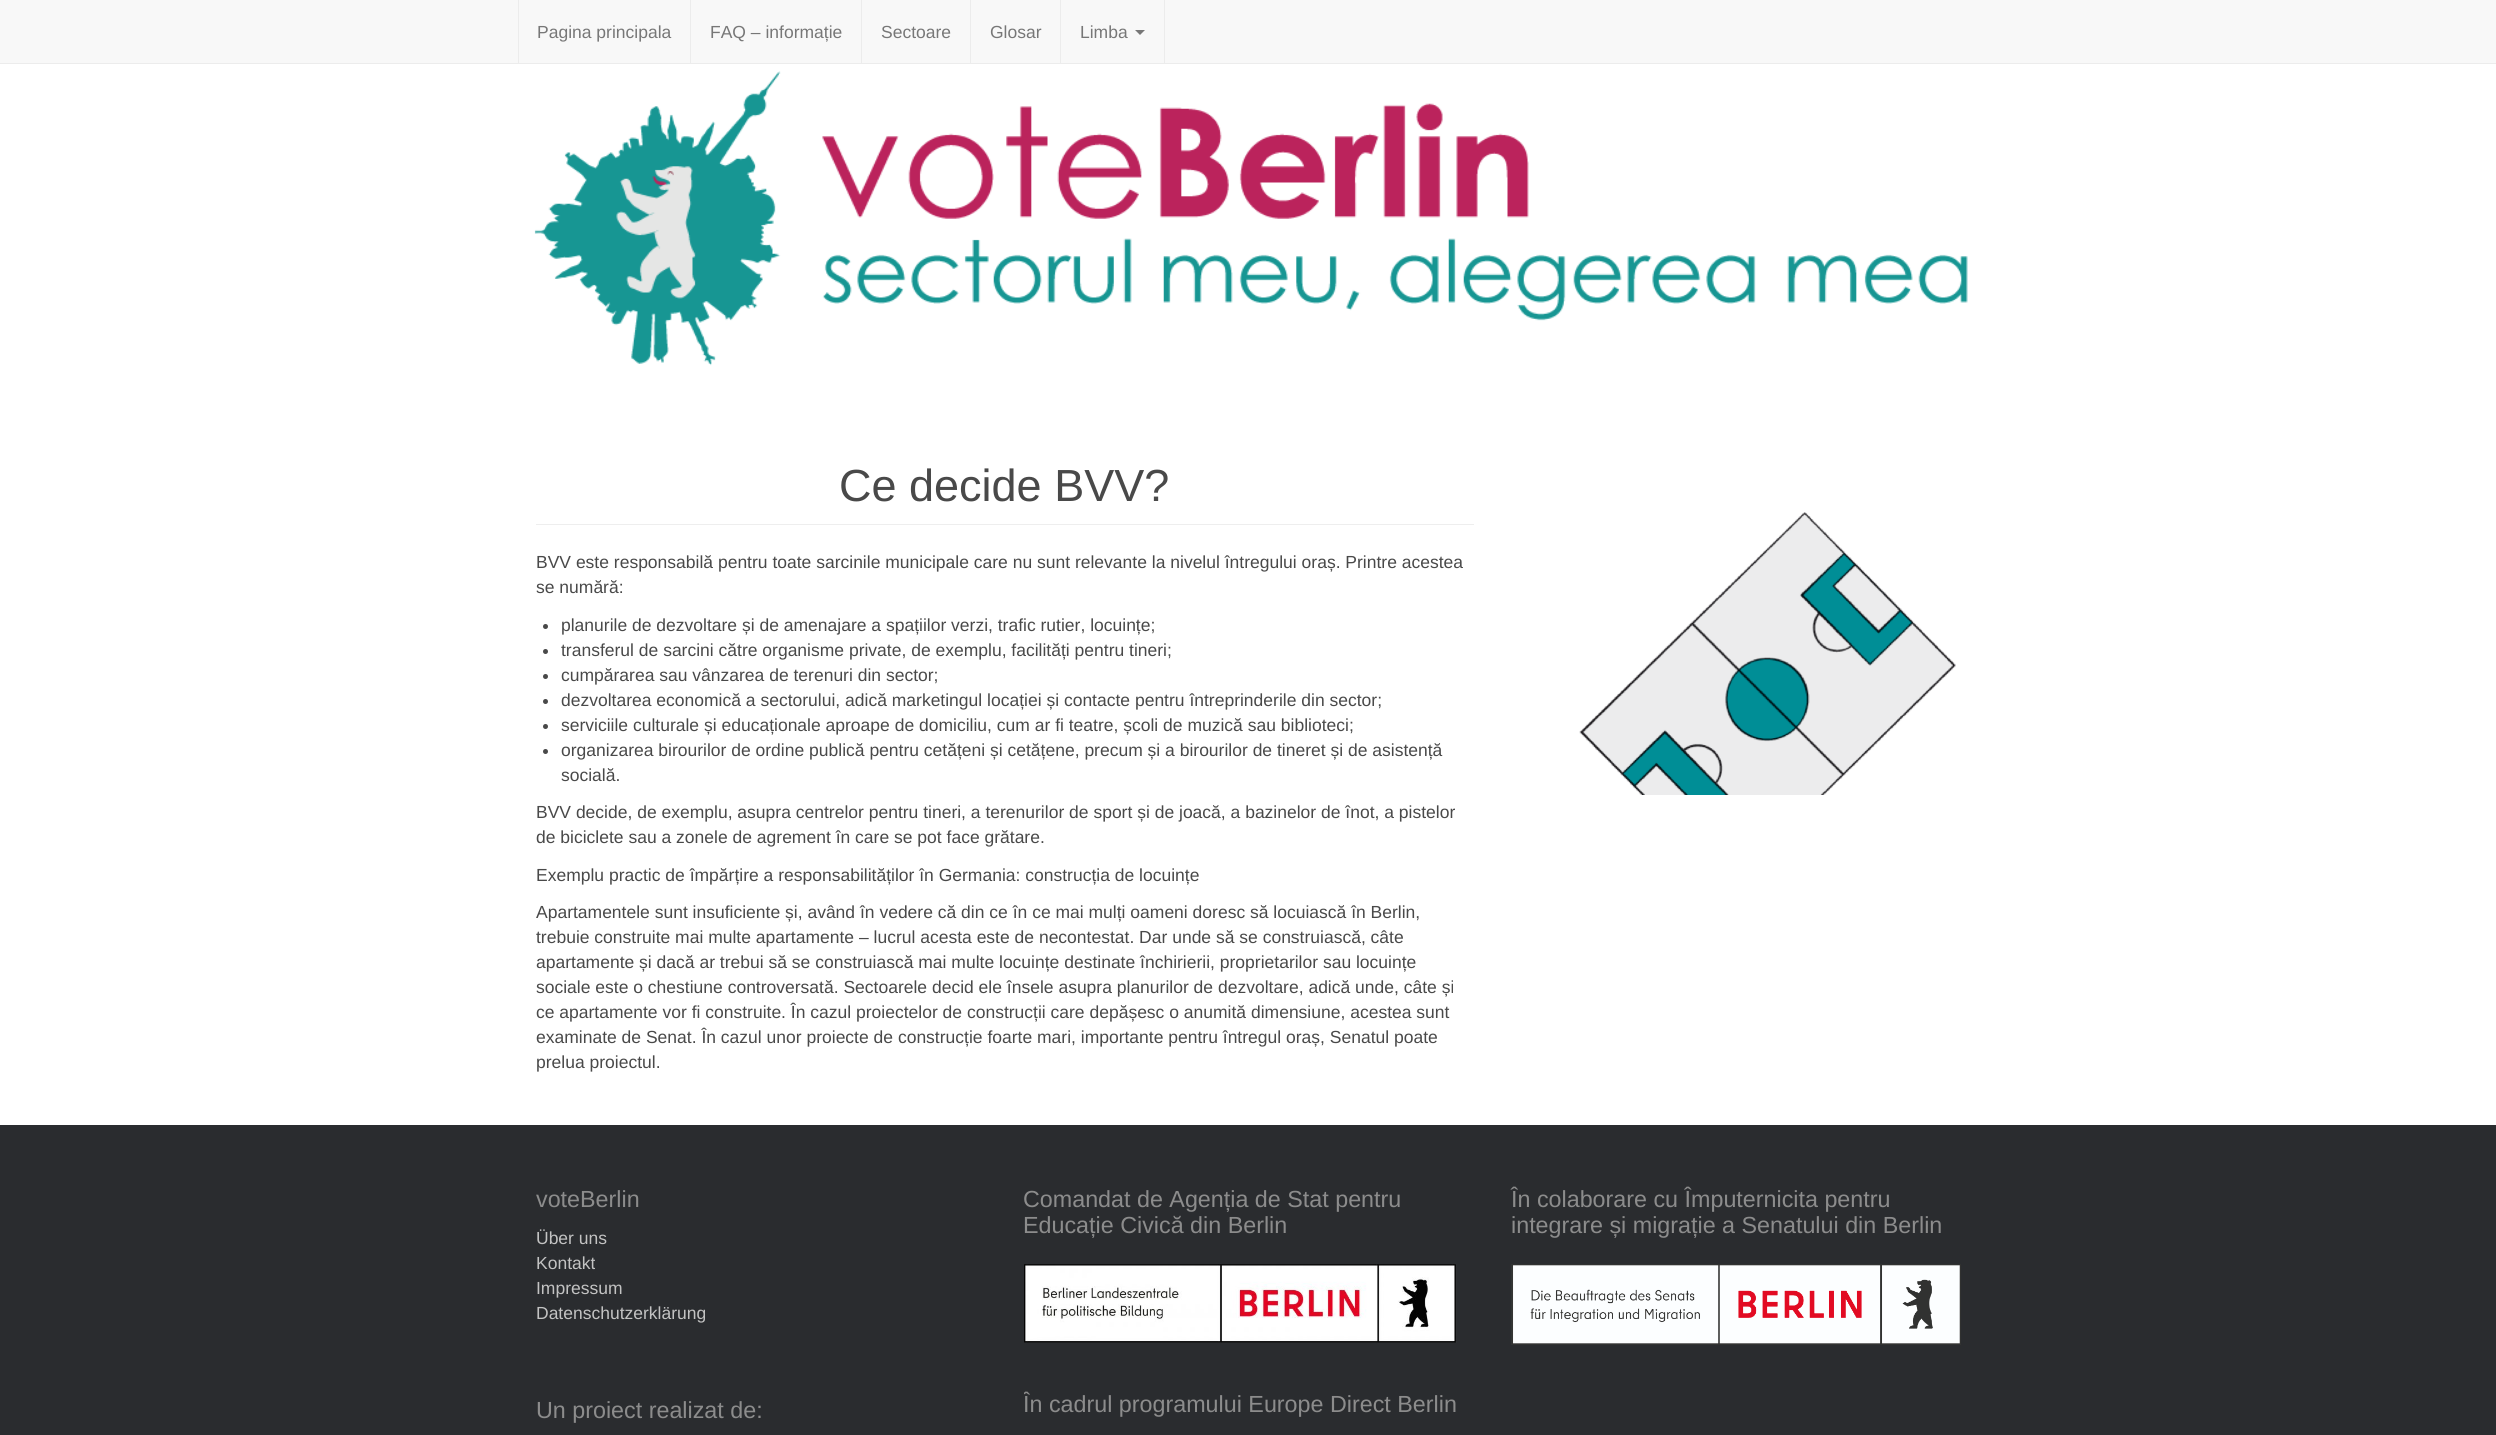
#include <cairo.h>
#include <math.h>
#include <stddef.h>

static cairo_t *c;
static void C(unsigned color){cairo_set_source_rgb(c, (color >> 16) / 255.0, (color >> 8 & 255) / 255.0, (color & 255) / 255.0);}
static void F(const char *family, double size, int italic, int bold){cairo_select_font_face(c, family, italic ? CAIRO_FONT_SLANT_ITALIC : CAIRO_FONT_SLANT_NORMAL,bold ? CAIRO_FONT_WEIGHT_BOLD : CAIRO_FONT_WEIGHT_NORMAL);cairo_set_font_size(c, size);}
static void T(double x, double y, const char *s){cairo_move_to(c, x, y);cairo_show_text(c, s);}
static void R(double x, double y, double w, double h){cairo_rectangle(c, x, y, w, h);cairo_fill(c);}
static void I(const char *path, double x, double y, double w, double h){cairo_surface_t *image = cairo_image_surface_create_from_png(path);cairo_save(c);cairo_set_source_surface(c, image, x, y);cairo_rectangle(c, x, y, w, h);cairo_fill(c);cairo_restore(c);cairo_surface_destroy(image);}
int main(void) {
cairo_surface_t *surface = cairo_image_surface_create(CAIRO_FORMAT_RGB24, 2496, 1435);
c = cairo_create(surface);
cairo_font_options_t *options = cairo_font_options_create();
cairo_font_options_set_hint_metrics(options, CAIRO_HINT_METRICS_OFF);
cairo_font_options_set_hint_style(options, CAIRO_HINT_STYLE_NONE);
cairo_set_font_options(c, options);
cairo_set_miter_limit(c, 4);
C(0xffffff);
cairo_paint(c);
C(0xf8f8f8);
R(0,0,2496,63);
C(0xececec);
R(0,63,2496,1);
R(1164,0,1,63);
R(518,0,1,63);
F("Liberation Sans",17.5,0,0);
C(0x777777);
T(537,38,"Pagina principala");
C(0xececec);
R(690,0,1,63);
C(0x777777);
T(710,38,"FAQ – informație");
C(0xececec);
R(861,0,1,63);
C(0x777777);
T(881,38,"Sectoare");
C(0xececec);
R(970,0,1,63);
C(0x777777);
T(990,38,"Glosar");
C(0xececec);
R(1060,0,1,63);
C(0x777777);
T(1080,38,"Limba");
cairo_new_path(c);
cairo_move_to(c,1135,30);
cairo_line_to(c,1145,30);
cairo_line_to(c,1140,35);
cairo_close_path(c);
cairo_fill(c);
I("1.png",534,71,1434,295);
C(0xeeeeee);
R(536,524,938,1);
F("Liberation Sans",45,0,0);
C(0x494949);
T(839,501,"Ce decide BVV?");
F("Liberation Sans",17.5,0,0);
T(536,568,"BVV este responsabilă pentru toate sarcinile municipale care nu sunt relevante la nivelul întregului oraș. Printre acestea");
T(536,593,"se numără:");
cairo_new_path(c);
cairo_arc(c,545.5,626.5,2.5,0,2 * M_PI);
cairo_fill(c);
T(561,631,"planurile de dezvoltare și de amenajare a spațiilor verzi, trafic rutier, locuințe;");
cairo_new_path(c);
cairo_arc(c,545.5,651.5,2.5,0,2 * M_PI);
cairo_fill(c);
T(561,656,"transferul de sarcini către organisme private, de exemplu, facilități pentru tineri;");
cairo_new_path(c);
cairo_arc(c,545.5,676.5,2.5,0,2 * M_PI);
cairo_fill(c);
T(561,681,"cumpărarea sau vânzarea de terenuri din sector;");
cairo_new_path(c);
cairo_arc(c,545.5,701.5,2.5,0,2 * M_PI);
cairo_fill(c);
T(561,706,"dezvoltarea economică a sectorului, adică marketingul locației și contacte pentru întreprinderile din sector;");
cairo_new_path(c);
cairo_arc(c,545.5,726.5,2.5,0,2 * M_PI);
cairo_fill(c);
T(561,731,"serviciile culturale și educaționale aproape de domiciliu, cum ar fi teatre, școli de muzică sau biblioteci;");
cairo_new_path(c);
cairo_arc(c,545.5,751.5,2.5,0,2 * M_PI);
cairo_fill(c);
T(561,756,"organizarea birourilor de ordine publică pentru cetățeni și cetățene, precum și a birourilor de tineret și de asistență");
T(561,781,"socială.");
T(536,818,"BVV decide, de exemplu, asupra centrelor pentru tineri, a terenurilor de sport și de joacă, a bazinelor de înot, a pistelor");
T(536,843,"de biciclete sau a zonele de agrement în care se pot face grătare.");
T(536,881,"Exemplu practic de împărțire a responsabilităților în Germania: construcția de locuințe");
T(536,918,"Apartamentele sunt insuficiente și, având în vedere că din ce în ce mai mulți oameni doresc să locuiască în Berlin,");
T(536,943,"trebuie construite mai multe apartamente – lucrul acesta este de necontestat. Dar unde să se construiască, câte");
T(536,968,"apartamente și dacă ar trebui să se construiască mai multe locuințe destinate închirierii, proprietarilor sau locuințe");
T(536,993,"sociale este o chestiune controversată. Sectoarele decid ele însele asupra planurilor de dezvoltare, adică unde, câte și");
T(536,1018,"ce apartamente vor fi construite. În cazul proiectelor de construcții care depășesc o anumită dimensiune, acestea sunt");
T(536,1043,"examinate de Senat. În cazul unor proiecte de construcție foarte mari, importante pentru întregul oraș, Senatul poate");
T(536,1068,"prelua proiectul.");
I("2.png",1579,512,377,283);
C(0x2a2c2f);
R(0,1125,2496,310);
F("Liberation Sans",23.3,0,0);
C(0x8c8c8c);
T(536,1207,"voteBerlin");
F("Liberation Sans",17.5,0,0);
C(0xc3c3c3);
T(536,1244,"Über uns");
T(536,1269,"Kontakt");
T(536,1294,"Impressum");
T(536,1319,"Datenschutzerklärung");
F("Liberation Sans",23.3,0,0);
C(0x8c8c8c);
T(536,1418,"Un proiect realizat de:");
T(1023,1207,"Comandat de Agenția de Stat pentru");
T(1023,1233,"Educație Civică din Berlin");
I("3.png",1024,1264,433,79);
cairo_save(c);
cairo_rectangle(c,1024,1150,450,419);
cairo_clip(c);
T(1023,1412,"În cadrul programului Europe Direct Berlin");
cairo_restore(c);
T(1511,1207,"În colaborare cu Împuternicita pentru");
T(1511,1233,"integrare și migrație a Senatului din Berlin");
I("4.png",1511,1264,450,81);
cairo_surface_write_to_png(surface, "o.png");
cairo_font_options_destroy(options);
cairo_destroy(c);
cairo_surface_destroy(surface);
return 0;
}
